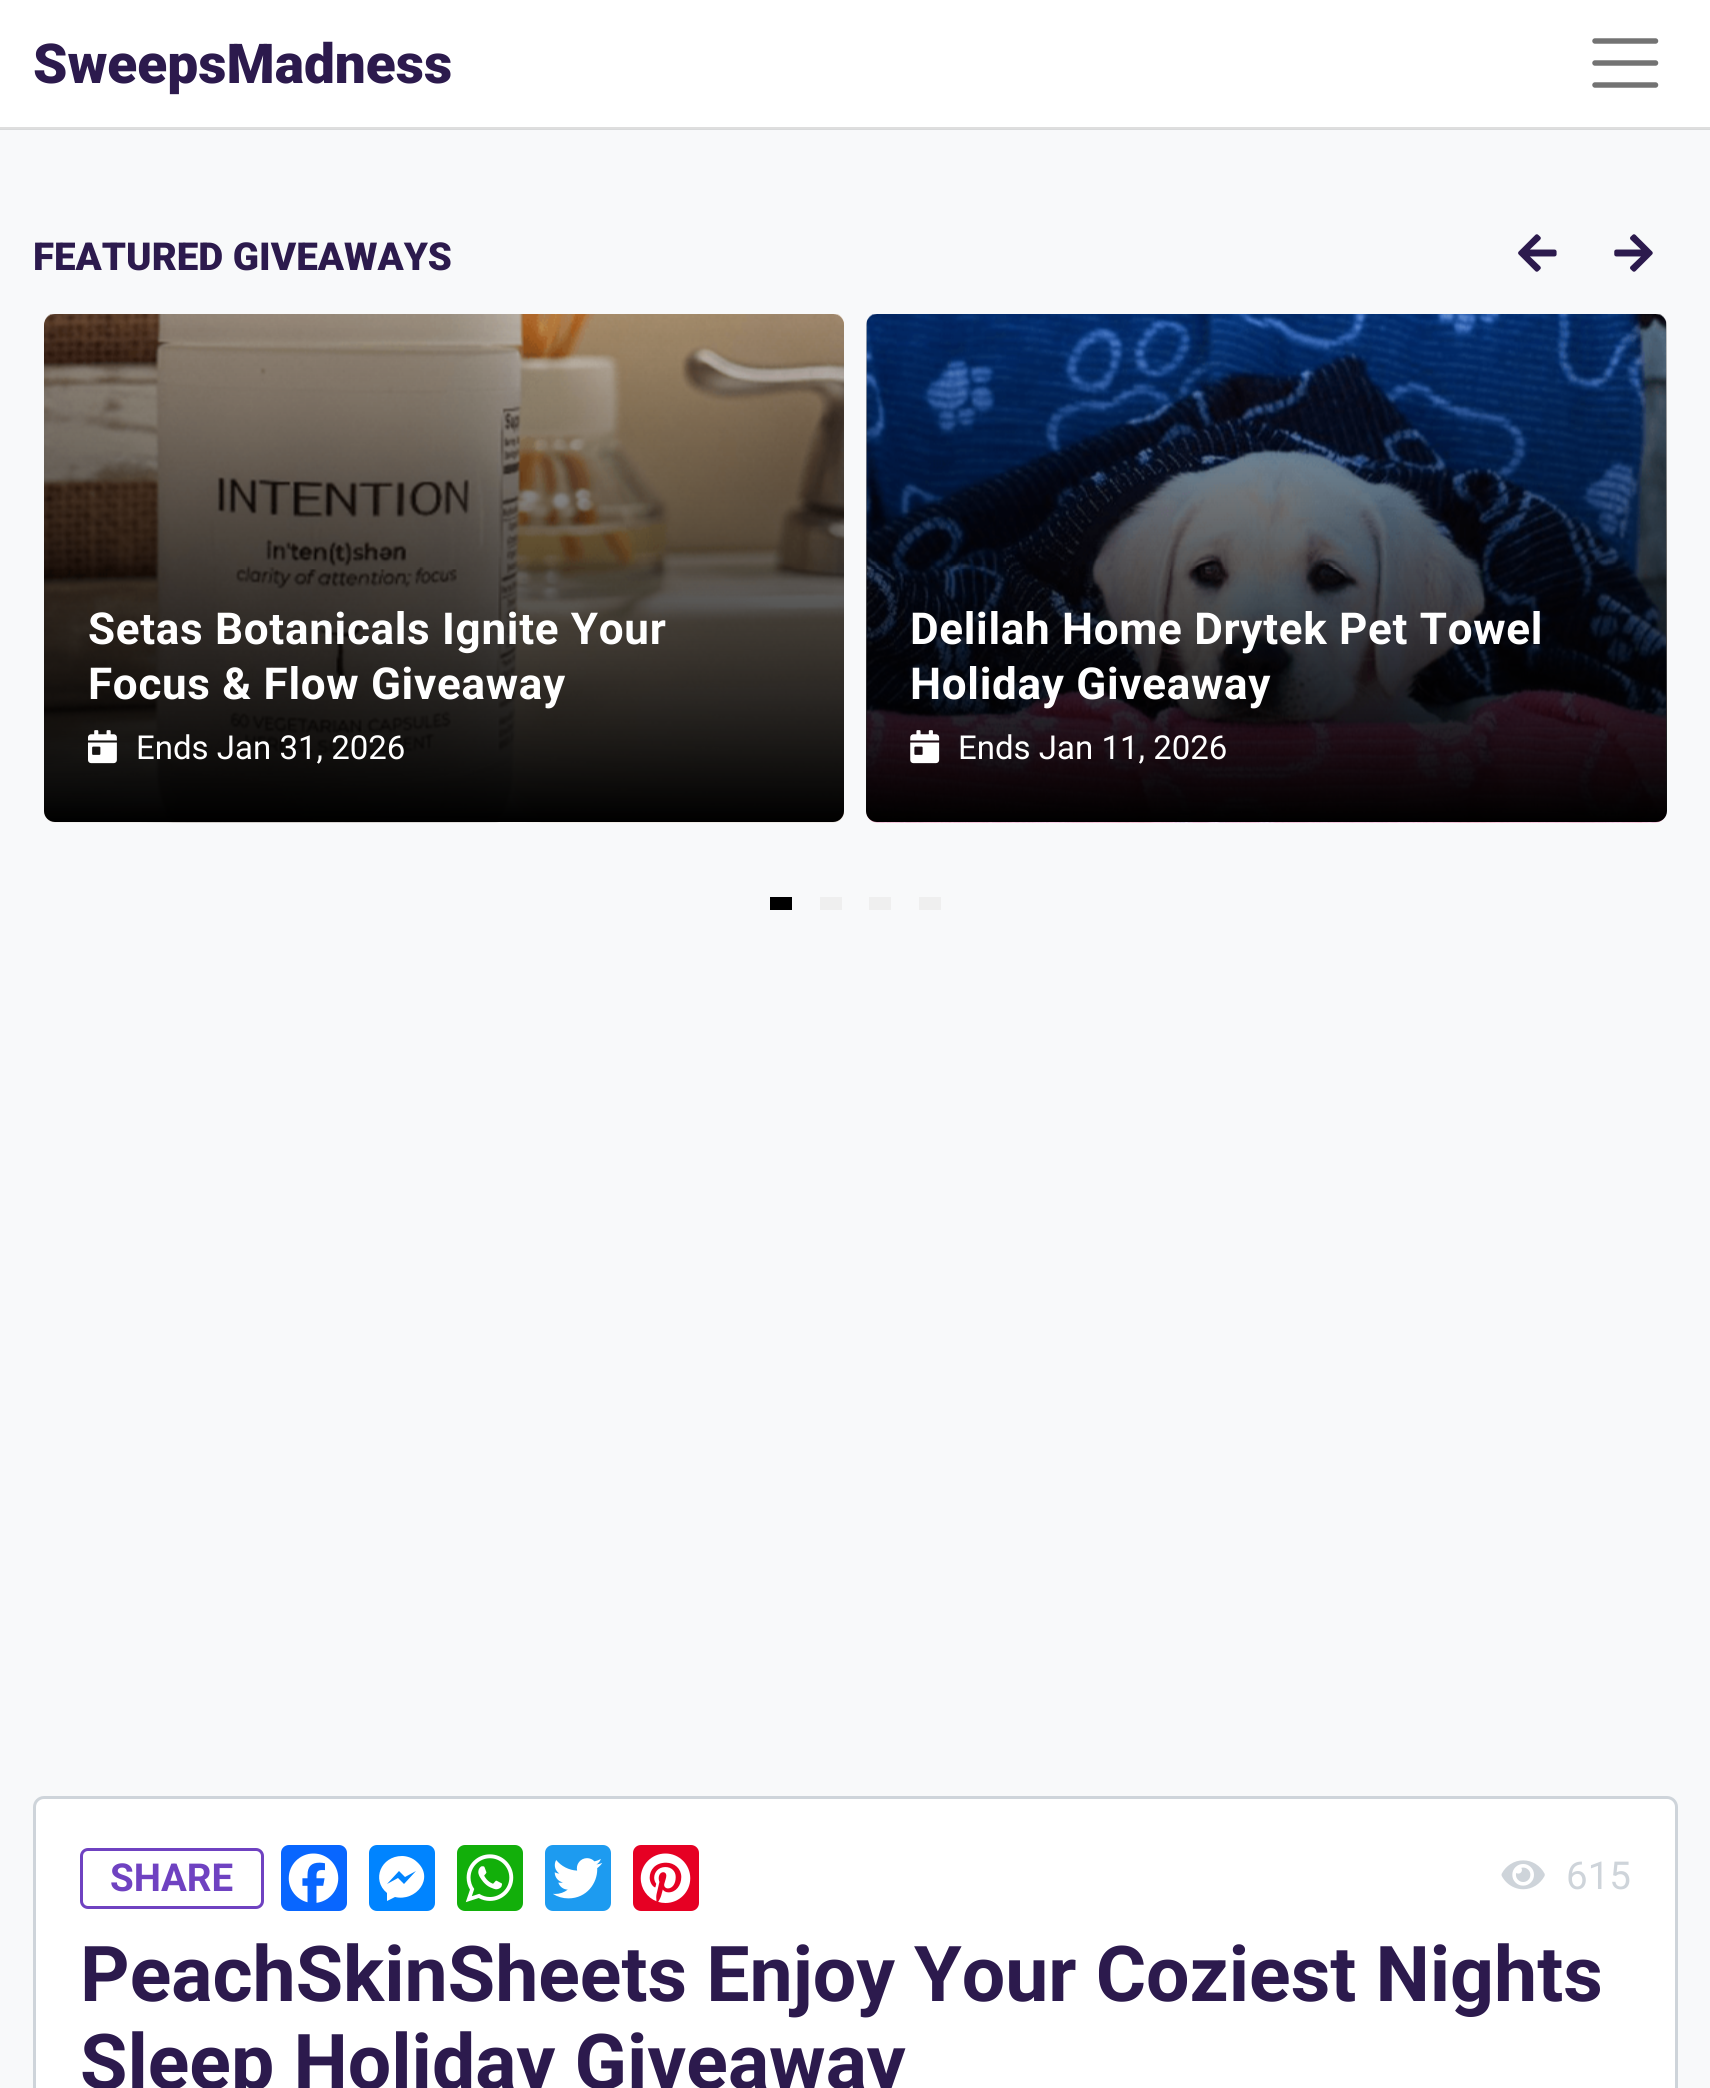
#include <cairo.h>
#include <math.h>
#include <stddef.h>

static cairo_t *c;
static void C(unsigned color){cairo_set_source_rgb(c, (color >> 16) / 255.0, (color >> 8 & 255) / 255.0, (color & 255) / 255.0);}
static void F(const char *family, double size, int italic, int bold){cairo_select_font_face(c, family, italic ? CAIRO_FONT_SLANT_ITALIC : CAIRO_FONT_SLANT_NORMAL,bold ? CAIRO_FONT_WEIGHT_BOLD : CAIRO_FONT_WEIGHT_NORMAL);cairo_set_font_size(c, size);}
static void T(double x, double y, const char *s){cairo_move_to(c, x, y);cairo_show_text(c, s);}
static void L(double x, double y, const char *s, double letter, double word){cairo_move_to(c, x, y);while (*s) {char ch[5] = {0};int n = 0;do ch[n++] = *s++; while ((*s & 0xC0) == 0x80);cairo_show_text(c, ch);cairo_rel_move_to(c, letter + word * (*ch == ' '), 0);}}
static void R(double x, double y, double w, double h){cairo_rectangle(c, x, y, w, h);cairo_fill(c);}
static void Q(double x, double y, double w, double h, double r){cairo_new_sub_path(c);cairo_arc(c, x + w - r, y + h - r, r, 0, M_PI / 2);cairo_arc(c, x + r, y + h - r, r, M_PI / 2, M_PI);cairo_arc(c, x + r, y + r, r, M_PI, 1.5 * M_PI);cairo_arc(c, x + w - r, y + r, r, 1.5 * M_PI, 2 * M_PI);cairo_close_path(c);}
static void I(const char *path, double x, double y, double w, double h){cairo_surface_t *image = cairo_image_surface_create_from_png(path);cairo_save(c);cairo_set_source_surface(c, image, x, y);cairo_rectangle(c, x, y, w, h);cairo_fill(c);cairo_restore(c);cairo_surface_destroy(image);}
int main(void) {
cairo_surface_t *surface = cairo_image_surface_create(CAIRO_FORMAT_RGB24, 1710, 2088);
c = cairo_create(surface);
cairo_font_options_t *options = cairo_font_options_create();
cairo_font_options_set_hint_metrics(options, CAIRO_HINT_METRICS_OFF);
cairo_font_options_set_hint_style(options, CAIRO_HINT_STYLE_NONE);
cairo_set_font_options(c, options);
cairo_set_miter_limit(c, 4);
cairo_pattern_t *gradient;
C(0xf8f9fa);
cairo_paint(c);
C(0xd8d9da);
R(0,129,1710,1);
C(0xffffff);
R(0,0,1710,127);
C(0xdedede);
R(0,127,1710,2);
F("Roboto Black",55,0,0);
C(0x2c1a4d);
T(33,83,"SweepsMadness");
cairo_new_path(c);
cairo_move_to(c,1595,41);
cairo_line_to(c,1655.5,41);
cairo_move_to(c,1595,63);
cairo_line_to(c,1655.5,63);
cairo_move_to(c,1595,85);
cairo_line_to(c,1655.5,85);
C(0x737373);
cairo_set_line_width(c,5.5);
cairo_set_line_cap(c,CAIRO_LINE_CAP_ROUND);
cairo_stroke(c);
F("Roboto Black",38.5,0,0);
C(0x2c1a4d);
T(33,270,"FEATURED GIVEAWAYS");
I("1.png",1518,234,39,38);
I("2.png",1614,234,39,38);
C(0xffffff);
Q(44,314,800,508,11);
cairo_fill(c);
I("3.png",44,314,800,509);
gradient = cairo_pattern_create_linear(444,822,444,314);
cairo_pattern_add_color_stop_rgba(gradient,0,0,0,0,1);
cairo_pattern_add_color_stop_rgba(gradient,.25,0,0,0,.8);
cairo_pattern_add_color_stop_rgba(gradient,.5,0,0,0,.6);
cairo_pattern_add_color_stop_rgba(gradient,.75,0,0,0,.4);
cairo_pattern_add_color_stop_rgba(gradient,1,0,0,0,.2);
cairo_set_source(c,gradient);
cairo_pattern_destroy(gradient);
Q(44,314,800,508,11);
cairo_fill(c);
F("Roboto",44,0,1);
C(0xffffff);
L(88,644,"Setas Botanicals Ignite Your",.7,0);
L(88,699,"Focus & Flow Giveaway",.7,0);
I("4.png",88,730,29,34);
F("Roboto",33,0,0);
T(136,759,"Ends Jan 31, 2026");
Q(866,314,801,508,11);
cairo_fill(c);
I("5.png",866,314,801,509);
gradient = cairo_pattern_create_linear(1266,822,1266,314);
cairo_pattern_add_color_stop_rgba(gradient,0,0,0,0,1);
cairo_pattern_add_color_stop_rgba(gradient,.25,0,0,0,.8);
cairo_pattern_add_color_stop_rgba(gradient,.5,0,0,0,.6);
cairo_pattern_add_color_stop_rgba(gradient,.75,0,0,0,.4);
cairo_pattern_add_color_stop_rgba(gradient,1,0,0,0,.2);
cairo_set_source(c,gradient);
cairo_pattern_destroy(gradient);
Q(866,314,801,508,11);
cairo_fill(c);
F("Roboto",44,0,1);
C(0xffffff);
L(910,644,"Delilah Home Drytek Pet Towel",.7,0);
L(910,699,"Holiday Giveaway",.7,0);
I("6.png",910,730,30,34);
F("Roboto",33,0,0);
T(958,759,"Ends Jan 11, 2026");
C(0x000000);
R(770,897,22,13);
C(0xefefef);
R(820,897,22,13);
R(869,897,22,13);
R(919,897,22,13);
C(0xffffff);
Q(34.5,1797.5,1642,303,9.5);
cairo_fill_preserve(c);
C(0xced4da);
cairo_set_line_width(c,3);
cairo_set_line_cap(c,CAIRO_LINE_CAP_BUTT);
cairo_stroke(c);
Q(81.5,1849.5,181,58,6.5);
C(0x6f42c1);
cairo_stroke(c);
F("Roboto",38.5,0,1);
T(110,1891,"SHARE");
C(0x0866ff);
Q(281,1845,66,66,8);
cairo_fill(c);
I("7.png",288,1853,51,50);
C(0x0084ff);
Q(369,1845,66,66,8);
cairo_fill(c);
C(0xffffff);
cairo_new_path(c);
cairo_move_to(c,402,1856);
cairo_curve_to(c,381,1856,371,1880,387,1893);
cairo_line_to(c,387,1901);
cairo_line_to(c,395,1897);
cairo_curve_to(c,416,1902,435,1878,417,1862);
cairo_curve_to(c,413,1858,407,1856,402,1856);
cairo_move_to(c,404,1884);
cairo_line_to(c,398,1878);
cairo_line_to(c,387,1884);
cairo_line_to(c,399,1871);
cairo_line_to(c,405,1877);
cairo_line_to(c,416,1871);
cairo_close_path(c);
cairo_fill(c);
C(0x12af0a);
Q(457,1845,66,66,8);
cairo_fill(c);
I("8.png",465,1854,49,49);
C(0x1d9bf0);
Q(545,1845,66,66,8);
cairo_fill(c);
I("9.png",553,1858,50,41);
C(0xe60023);
Q(633,1845,66,66,8);
cairo_fill(c);
I("10.png",640,1853,51,50);
I("11.png",1501,1860,44,30);
F("Roboto",38.5,0,0);
C(0xced4da);
T(1566,1889,"615");
F("Roboto",77,0,1);
C(0x2c1a4d);
T(80,2001,"PeachSkinSheets Enjoy Your Coziest Nights");
T(80,2089,"Sleep Holiday Giveaway");
cairo_surface_write_to_png(surface, "o.png");
cairo_font_options_destroy(options);
cairo_destroy(c);
cairo_surface_destroy(surface);
return 0;
}
